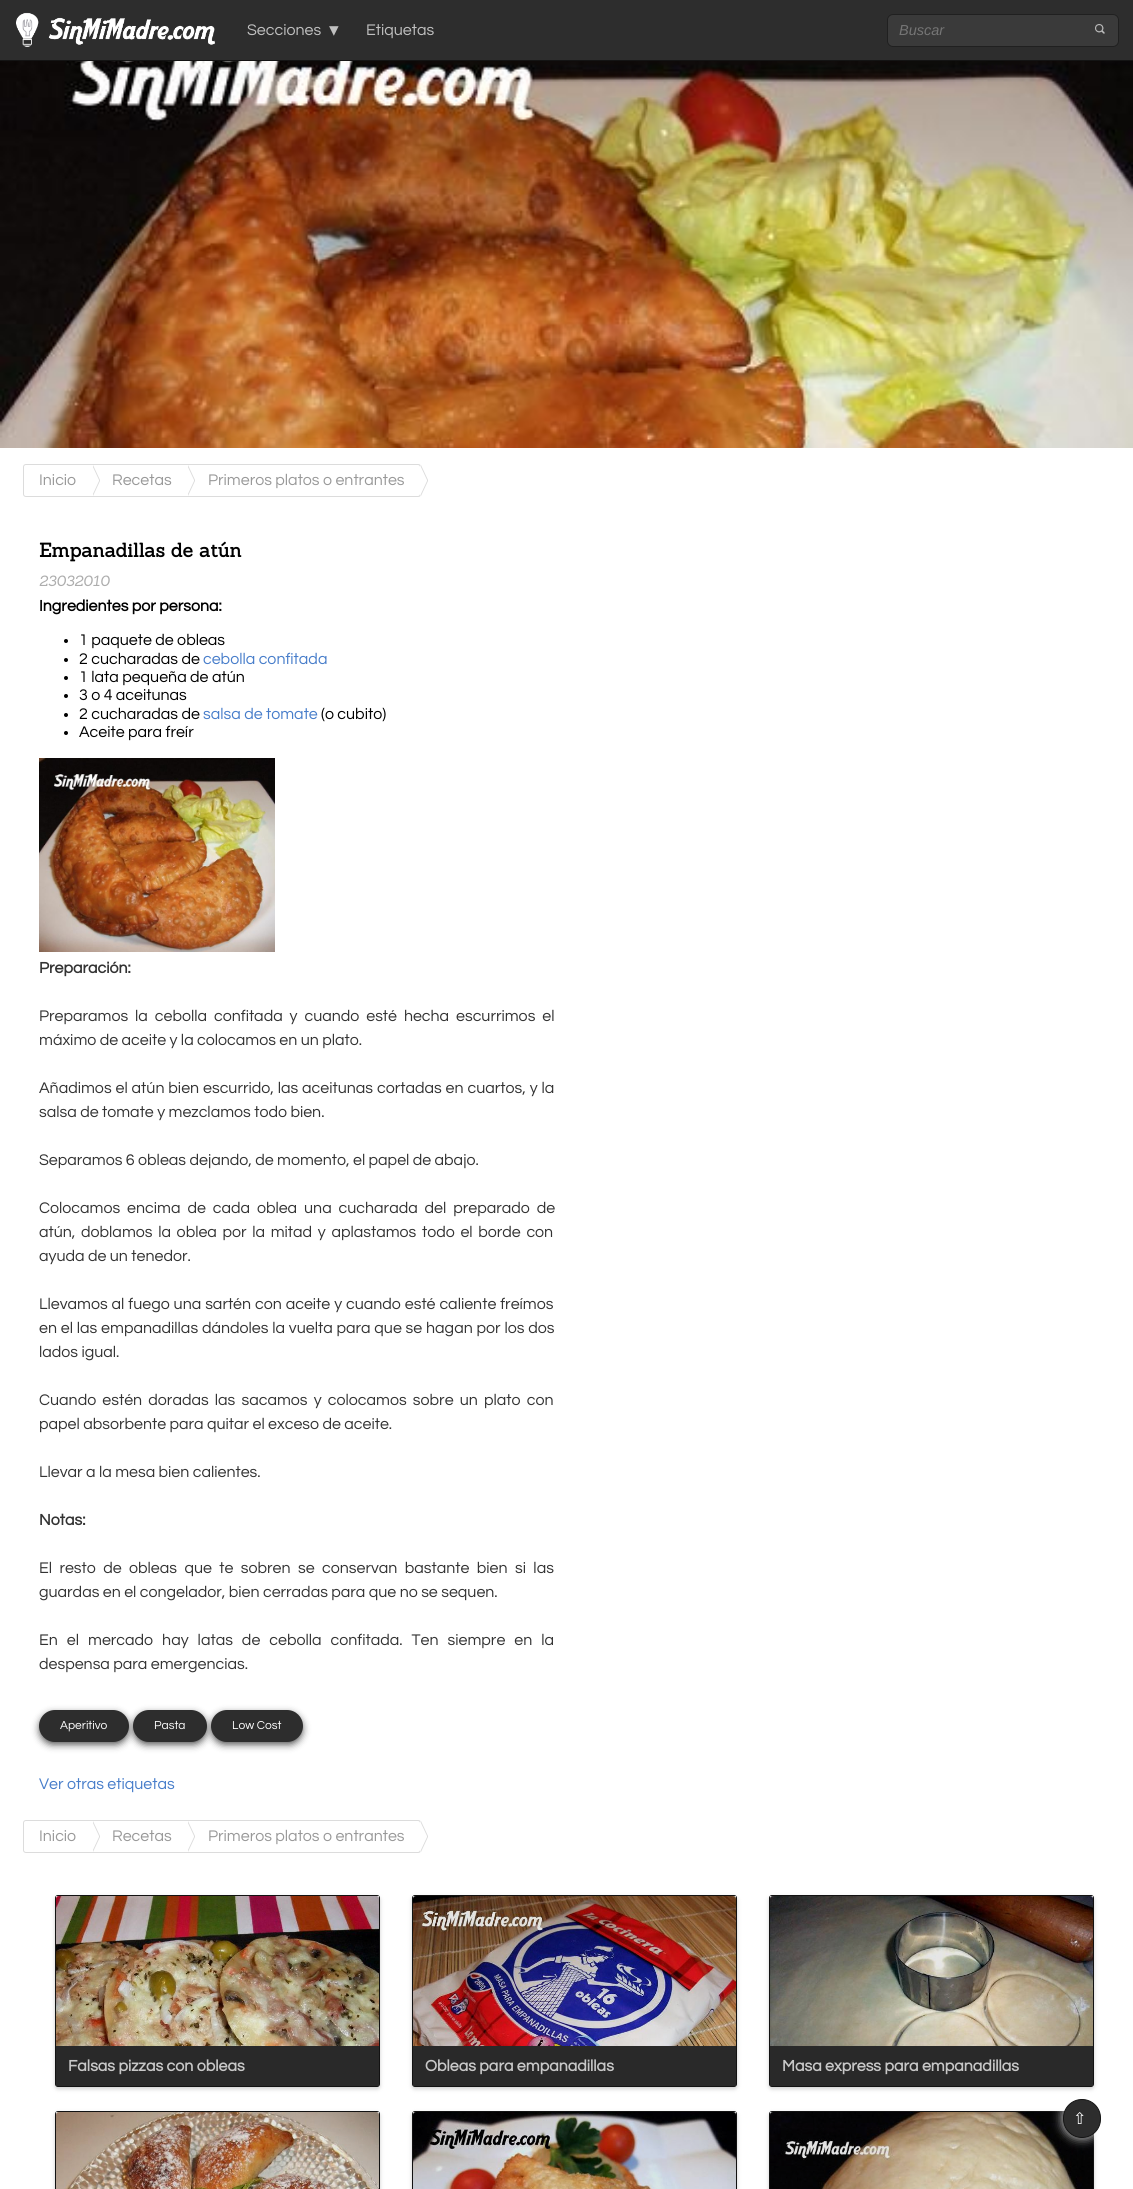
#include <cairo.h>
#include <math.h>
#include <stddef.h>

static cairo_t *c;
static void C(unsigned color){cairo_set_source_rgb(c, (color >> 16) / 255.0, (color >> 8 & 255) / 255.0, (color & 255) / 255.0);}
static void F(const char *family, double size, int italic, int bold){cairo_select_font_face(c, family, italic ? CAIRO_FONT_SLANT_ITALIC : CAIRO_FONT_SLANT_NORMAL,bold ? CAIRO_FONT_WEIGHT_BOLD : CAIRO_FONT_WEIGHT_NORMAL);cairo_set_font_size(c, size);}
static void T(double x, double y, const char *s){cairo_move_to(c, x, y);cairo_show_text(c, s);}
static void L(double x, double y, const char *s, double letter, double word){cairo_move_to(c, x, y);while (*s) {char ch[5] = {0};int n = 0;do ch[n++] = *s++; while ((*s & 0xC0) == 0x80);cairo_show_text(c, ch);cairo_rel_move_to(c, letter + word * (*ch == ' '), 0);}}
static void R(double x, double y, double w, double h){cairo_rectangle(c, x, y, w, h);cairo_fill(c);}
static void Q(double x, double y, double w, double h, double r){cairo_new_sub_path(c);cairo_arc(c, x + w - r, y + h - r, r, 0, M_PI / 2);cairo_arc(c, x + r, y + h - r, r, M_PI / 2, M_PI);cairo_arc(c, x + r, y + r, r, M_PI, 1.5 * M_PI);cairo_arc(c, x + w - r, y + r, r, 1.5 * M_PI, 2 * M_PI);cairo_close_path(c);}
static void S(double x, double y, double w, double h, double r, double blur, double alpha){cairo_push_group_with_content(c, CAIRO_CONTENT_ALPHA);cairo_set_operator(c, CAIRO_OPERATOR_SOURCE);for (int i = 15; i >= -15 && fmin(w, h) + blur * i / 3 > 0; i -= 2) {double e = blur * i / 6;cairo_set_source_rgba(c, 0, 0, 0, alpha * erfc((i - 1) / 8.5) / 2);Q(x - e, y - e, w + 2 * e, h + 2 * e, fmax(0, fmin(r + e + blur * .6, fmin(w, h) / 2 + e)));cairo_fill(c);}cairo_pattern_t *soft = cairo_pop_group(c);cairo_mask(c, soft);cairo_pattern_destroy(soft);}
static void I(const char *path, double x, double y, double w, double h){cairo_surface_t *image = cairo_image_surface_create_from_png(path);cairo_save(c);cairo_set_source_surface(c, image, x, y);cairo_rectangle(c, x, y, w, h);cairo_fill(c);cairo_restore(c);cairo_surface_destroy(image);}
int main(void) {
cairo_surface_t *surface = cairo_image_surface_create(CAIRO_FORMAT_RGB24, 1133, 2189);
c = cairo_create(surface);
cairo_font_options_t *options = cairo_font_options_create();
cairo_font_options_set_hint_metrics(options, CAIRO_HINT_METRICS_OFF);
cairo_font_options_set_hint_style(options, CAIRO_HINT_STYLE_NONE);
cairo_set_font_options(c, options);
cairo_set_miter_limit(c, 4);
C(0xffffff);
cairo_paint(c);
C(0x2d2d2d);
R(0,0,1133,60);
C(0x141414);
R(0,60,1133,1);
I("1.png",16,12,199,35);
F("Questrial",16,0,0);
C(0xc0c0c0);
T(247,35,"Secciones");
F("DejaVu Sans",19.25,0,0);
T(329,36,"▾");
F("Questrial",16,0,0);
T(366,35,"Etiquetas");
C(0x3a3a3a);
Q(887.5,14.5,231,32,5.5);
cairo_fill_preserve(c);
C(0x202020);
cairo_set_line_width(c,1);
cairo_stroke(c);
F("Liberation Sans",14.5,1,0);
C(0x757575);
T(899,35,"Buscar");
I("2.png",1095,24,10,10);
I("3.png",0,61,1133,387);
cairo_new_path(c);
cairo_move_to(c,26,464.5);
cairo_line_to(c,92.5,464.5);
cairo_line_to(c,92.5,496.5);
cairo_line_to(c,26,496.5);
cairo_curve_to(c,24.5,496.5,23.5,495.5,23.5,494);
cairo_line_to(c,23.5,467);
cairo_curve_to(c,23.5,465.5,24.5,464.5,26,464.5);
cairo_close_path(c);
C(0xdcdcdc);
cairo_stroke(c);
cairo_new_path(c);
cairo_move_to(c,93,496);
cairo_line_to(c,93,465);
cairo_line_to(c,100,480);
cairo_line_to(c,100,481);
cairo_close_path(c);
cairo_fill(c);
C(0xffffff);
R(92,465,1,31);
cairo_new_path(c);
cairo_move_to(c,92,496);
cairo_line_to(c,92,465);
cairo_line_to(c,99,480);
cairo_line_to(c,99,481);
cairo_close_path(c);
cairo_fill(c);
F("Questrial",16,0,0);
C(0x999999);
T(39,485,"Inicio");
C(0xdcdcdc);
R(91,464,97,1);
R(91,496,97,1);
C(0xffffff);
cairo_new_path(c);
cairo_move_to(c,187,464);
cairo_line_to(c,418,464);
cairo_curve_to(c,419.5,464,421,465.5,421,467);
cairo_line_to(c,421,494);
cairo_curve_to(c,421,495.5,419.5,497,418,497);
cairo_line_to(c,187,497);
cairo_close_path(c);
cairo_fill(c);
C(0xdcdcdc);
cairo_set_fill_rule(c,CAIRO_FILL_RULE_EVEN_ODD);
cairo_new_path(c);
cairo_move_to(c,187,464);
cairo_line_to(c,418,464);
cairo_curve_to(c,420,464,421,465,421,467);
cairo_line_to(c,421,494);
cairo_curve_to(c,421,496,420,497,418,497);
cairo_line_to(c,187,497);
cairo_close_path(c);
cairo_move_to(c,187,465);
cairo_line_to(c,418,465);
cairo_curve_to(c,419,465,420,466,420,467);
cairo_line_to(c,420,494);
cairo_curve_to(c,420,495,419,496,418,496);
cairo_line_to(c,187,496);
cairo_close_path(c);
cairo_fill(c);
cairo_set_fill_rule(c,CAIRO_FILL_RULE_WINDING);
cairo_new_path(c);
cairo_move_to(c,188,496);
cairo_line_to(c,188,465);
cairo_line_to(c,195,480);
cairo_line_to(c,195,481);
cairo_close_path(c);
cairo_fill(c);
C(0xffffff);
cairo_new_path(c);
cairo_move_to(c,187,496);
cairo_line_to(c,187,465);
cairo_line_to(c,194,480);
cairo_line_to(c,194,481);
cairo_close_path(c);
cairo_fill(c);
C(0x999999);
T(112,485,"Recetas");
C(0xdcdcdc);
cairo_new_path(c);
cairo_move_to(c,421,496);
cairo_line_to(c,421,465);
cairo_line_to(c,428,480);
cairo_line_to(c,428,481);
cairo_close_path(c);
cairo_fill(c);
C(0xffffff);
cairo_new_path(c);
cairo_move_to(c,420,496);
cairo_line_to(c,420,465);
cairo_line_to(c,427,480);
cairo_line_to(c,427,481);
cairo_close_path(c);
cairo_fill(c);
C(0x999999);
T(208,485,"Primeros platos o entrantes");
F("Sanchez",19.25,0,1);
C(0x000000);
T(39,557,"Empanadillas de atún");
F("Sanchez",14.5,1,0);
C(0xadadad);
T(39,586,"23032010");
F("Questrial",16,0,1);
C(0x000000);
T(39,611,"Ingredientes por persona:");
cairo_new_path(c);
cairo_arc(c,66,641,2,0,2 * M_PI);
cairo_fill(c);
F("Questrial",16,0,0);
T(79,645,"1 paquete de obleas");
cairo_new_path(c);
cairo_arc(c,66,660,2,0,2 * M_PI);
cairo_fill(c);
T(79,664,"2 cucharadas de");
C(0x477dca);
T(203,664,"cebolla confitada");
C(0x000000);
cairo_new_path(c);
cairo_arc(c,66,678,2,0,2 * M_PI);
cairo_fill(c);
T(79,682,"1 lata pequeña de atún");
cairo_new_path(c);
cairo_arc(c,66,696,2,0,2 * M_PI);
cairo_fill(c);
T(79,700,"3 o 4 aceitunas");
cairo_new_path(c);
cairo_arc(c,66,715,2,0,2 * M_PI);
cairo_fill(c);
T(79,719,"2 cucharadas de");
C(0x477dca);
T(203,719,"salsa de tomate");
C(0x000000);
T(321,719,"(o cubito)");
cairo_new_path(c);
cairo_arc(c,66,733,2,0,2 * M_PI);
cairo_fill(c);
T(79,737,"Aceite para freír");
I("4.png",39,758,236,194);
F("Questrial",16,0,1);
C(0x333333);
T(39,973,"Preparación:");
F("Questrial",16,0,0);
L(39,1021,"Preparamos la cebolla confitada y cuando esté hecha escurrimos el",0,3.5);
T(39,1045,"máximo de aceite y la colocamos en un plato.");
L(39,1093,"Añadimos el atún bien escurrido, las aceitunas cortadas en cuartos, y la",0,.5);
T(39,1117,"salsa de tomate y mezclamos todo bien.");
T(39,1165,"Separamos 6 obleas dejando, de momento, el papel de abajo.");
L(39,1213,"Colocamos encima de cada oblea una cucharada del preparado de",0,3.5);
L(39,1237,"atún, doblamos la oblea por la mitad y aplastamos todo el borde con",0,2.25);
T(39,1261,"ayuda de un tenedor.");
L(39,1309,"Llevamos al fuego una sartén con aceite y cuando esté caliente freímos",0,.5);
L(39,1333,"en el las empanadillas dándoles la vuelta para que se hagan por los dos",0,.4);
T(39,1357,"lados igual.");
L(39,1405,"Cuando estén doradas las sacamos y colocamos sobre un plato con",0,2.75);
T(39,1429,"papel absorbente para quitar el exceso de aceite.");
T(39,1477,"Llevar a la mesa bien calientes.");
F("Questrial",16,0,1);
T(39,1525,"Notas:");
F("Questrial",16,0,0);
L(39,1573,"El resto de obleas que te sobren se conservan bastante bien si las",0,4);
T(39,1597,"guardas en el congelador, bien cerradas para que no se sequen.");
L(39,1645,"En el mercado hay latas de cebolla confitada. Ten siempre en la",0,5.6);
T(39,1669,"despensa para emergencias.");
C(0x000000);
S(40,1714,88,30,15,4,.75);
C(0x2d2d2d);
Q(39,1710,90,32,16);
cairo_fill(c);
F("Questrial",12,0,0);
C(0xffffff);
T(60,1729,"Aperitivo");
C(0x000000);
S(134,1714,72,30,15,4,.75);
C(0x2d2d2d);
Q(133,1710,74,32,16);
cairo_fill(c);
C(0xffffff);
T(154,1729,"Pasta");
C(0x000000);
S(212,1714,90,30,15,4,.75);
C(0x2d2d2d);
Q(211,1710,92,32,16);
cairo_fill(c);
C(0xffffff);
T(232,1729,"Low Cost");
F("Questrial",16,0,0);
C(0x477dca);
T(39,1789,"Ver otras etiquetas");
cairo_new_path(c);
cairo_move_to(c,26,1820.5);
cairo_line_to(c,92.5,1820.5);
cairo_line_to(c,92.5,1852.5);
cairo_line_to(c,26,1852.5);
cairo_curve_to(c,24.5,1852.5,23.5,1851.5,23.5,1850);
cairo_line_to(c,23.5,1823);
cairo_curve_to(c,23.5,1821.5,24.5,1820.5,26,1820.5);
cairo_close_path(c);
C(0xdcdcdc);
cairo_stroke(c);
cairo_new_path(c);
cairo_move_to(c,93,1852);
cairo_line_to(c,93,1821);
cairo_line_to(c,100,1836);
cairo_line_to(c,100,1837);
cairo_close_path(c);
cairo_fill(c);
C(0xffffff);
R(92,1821,1,31);
cairo_new_path(c);
cairo_move_to(c,92,1852);
cairo_line_to(c,92,1821);
cairo_line_to(c,99,1836);
cairo_line_to(c,99,1837);
cairo_close_path(c);
cairo_fill(c);
C(0x999999);
T(39,1841,"Inicio");
C(0xdcdcdc);
R(91,1820,97,1);
R(91,1852,97,1);
C(0xffffff);
cairo_new_path(c);
cairo_move_to(c,187,1820);
cairo_line_to(c,418,1820);
cairo_curve_to(c,419.5,1820,421,1821.5,421,1823);
cairo_line_to(c,421,1850);
cairo_curve_to(c,421,1851.5,419.5,1853,418,1853);
cairo_line_to(c,187,1853);
cairo_close_path(c);
cairo_fill(c);
C(0xdcdcdc);
cairo_set_fill_rule(c,CAIRO_FILL_RULE_EVEN_ODD);
cairo_new_path(c);
cairo_move_to(c,187,1820);
cairo_line_to(c,418,1820);
cairo_curve_to(c,420,1820,421,1821,421,1823);
cairo_line_to(c,421,1850);
cairo_curve_to(c,421,1852,420,1853,418,1853);
cairo_line_to(c,187,1853);
cairo_close_path(c);
cairo_move_to(c,187,1821);
cairo_line_to(c,418,1821);
cairo_curve_to(c,419,1821,420,1822,420,1823);
cairo_line_to(c,420,1850);
cairo_curve_to(c,420,1851,419,1852,418,1852);
cairo_line_to(c,187,1852);
cairo_close_path(c);
cairo_fill(c);
cairo_set_fill_rule(c,CAIRO_FILL_RULE_WINDING);
cairo_new_path(c);
cairo_move_to(c,188,1852);
cairo_line_to(c,188,1821);
cairo_line_to(c,195,1836);
cairo_line_to(c,195,1837);
cairo_close_path(c);
cairo_fill(c);
C(0xffffff);
cairo_new_path(c);
cairo_move_to(c,187,1852);
cairo_line_to(c,187,1821);
cairo_line_to(c,194,1836);
cairo_line_to(c,194,1837);
cairo_close_path(c);
cairo_fill(c);
C(0x999999);
T(112,1841,"Recetas");
C(0xdcdcdc);
cairo_new_path(c);
cairo_move_to(c,421,1852);
cairo_line_to(c,421,1821);
cairo_line_to(c,428,1836);
cairo_line_to(c,428,1837);
cairo_close_path(c);
cairo_fill(c);
C(0xffffff);
cairo_new_path(c);
cairo_move_to(c,420,1852);
cairo_line_to(c,420,1821);
cairo_line_to(c,427,1836);
cairo_line_to(c,427,1837);
cairo_close_path(c);
cairo_fill(c);
C(0x999999);
T(208,1841,"Primeros platos o entrantes");
C(0xcfcfcf);
S(55,1897,325,192,3,2,1);
C(0x292929);
Q(55.5,1895.5,324,191,2.5);
cairo_fill_preserve(c);
C(0x121212);
cairo_stroke(c);
C(0xe1e1e1);
R(56,1896,323,3);
I("5.png",56,1896,323,150);
C(0x292929);
cairo_new_path(c);
cairo_move_to(c,59,2046);
cairo_line_to(c,376,2046);
cairo_curve_to(c,377.5,2046,379,2047.5,379,2049);
cairo_line_to(c,379,2086);
cairo_line_to(c,56,2086);
cairo_line_to(c,56,2049);
cairo_curve_to(c,56,2047.5,57.5,2046,59,2046);
cairo_close_path(c);
cairo_fill(c);
F("Questrial",16,0,1);
C(0xc7c7c7);
T(68,2071,"Falsas pizzas con obleas");
C(0xcfcfcf);
S(412,1897,325,192,3,2,1);
C(0x292929);
Q(412.5,1895.5,324,191,2.5);
cairo_fill_preserve(c);
C(0x121212);
cairo_stroke(c);
C(0xe1e1e1);
R(413,1896,323,3);
I("6.png",413,1896,323,150);
C(0x292929);
cairo_new_path(c);
cairo_move_to(c,416,2046);
cairo_line_to(c,733,2046);
cairo_curve_to(c,734.5,2046,736,2047.5,736,2049);
cairo_line_to(c,736,2086);
cairo_line_to(c,413,2086);
cairo_line_to(c,413,2049);
cairo_curve_to(c,413,2047.5,414.5,2046,416,2046);
cairo_close_path(c);
cairo_fill(c);
C(0xc7c7c7);
T(425,2071,"Obleas para empanadillas");
C(0xcfcfcf);
S(769,1897,325,192,3,2,1);
C(0x292929);
Q(769.5,1895.5,324,191,2.5);
cairo_fill_preserve(c);
C(0x121212);
cairo_stroke(c);
C(0xe1e1e1);
R(770,1896,323,3);
I("7.png",770,1896,323,150);
C(0x292929);
cairo_new_path(c);
cairo_move_to(c,773,2046);
cairo_line_to(c,1090,2046);
cairo_curve_to(c,1091.5,2046,1093,2047.5,1093,2049);
cairo_line_to(c,1093,2086);
cairo_line_to(c,770,2086);
cairo_line_to(c,770,2049);
cairo_curve_to(c,770,2047.5,771.5,2046,773,2046);
cairo_close_path(c);
cairo_fill(c);
C(0xc7c7c7);
T(782,2071,"Masa express para empanadillas");
C(0xcfcfcf);
S(55,2113,325,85,3,2,1);
Q(55.5,2111.5,324,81,2.5);
C(0x121212);
cairo_stroke(c);
C(0xe1e1e1);
R(56,2112,323,3);
I("8.png",56,2112,323,77);
C(0xcfcfcf);
S(412,2113,325,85,3,2,1);
Q(412.5,2111.5,324,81,2.5);
C(0x121212);
cairo_stroke(c);
C(0xe1e1e1);
R(413,2112,323,3);
I("9.png",413,2112,323,77);
C(0xcfcfcf);
S(769,2113,325,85,3,2,1);
Q(769.5,2111.5,324,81,2.5);
C(0x121212);
cairo_stroke(c);
C(0xe1e1e1);
R(770,2112,3,3);
I("10.png",770,2112,323,77);
C(0xffffff);
S(1062,2098,40,41,20,5,.75);
C(0x2d2d2d);
Q(1063.5,2099.5,37,38,18.5);
cairo_fill_preserve(c);
C(0x141414);
cairo_stroke(c);
F("DejaVu Sans",16,0,0);
C(0xffffff);
T(1073,2124,"⇧");
cairo_surface_write_to_png(surface, "o.png");
cairo_font_options_destroy(options);
cairo_destroy(c);
cairo_surface_destroy(surface);
return 0;
}
